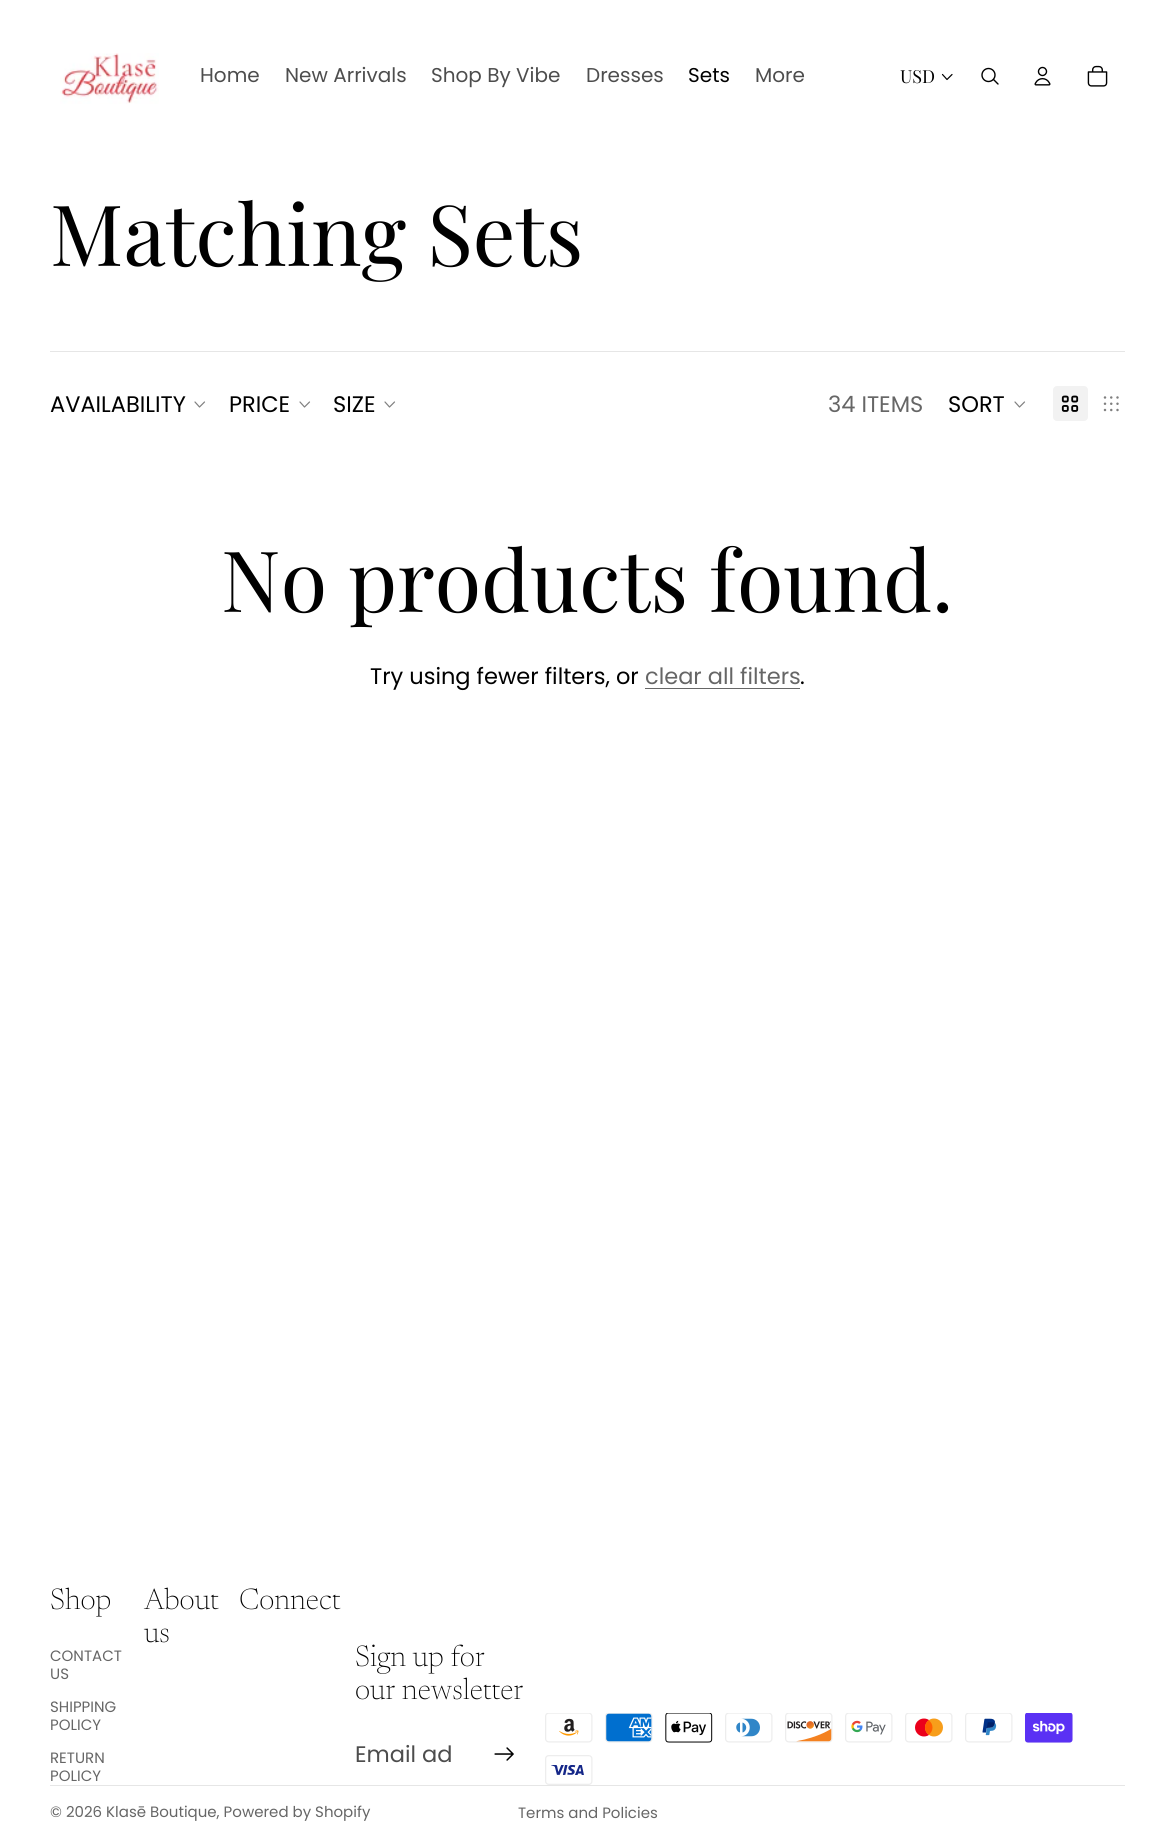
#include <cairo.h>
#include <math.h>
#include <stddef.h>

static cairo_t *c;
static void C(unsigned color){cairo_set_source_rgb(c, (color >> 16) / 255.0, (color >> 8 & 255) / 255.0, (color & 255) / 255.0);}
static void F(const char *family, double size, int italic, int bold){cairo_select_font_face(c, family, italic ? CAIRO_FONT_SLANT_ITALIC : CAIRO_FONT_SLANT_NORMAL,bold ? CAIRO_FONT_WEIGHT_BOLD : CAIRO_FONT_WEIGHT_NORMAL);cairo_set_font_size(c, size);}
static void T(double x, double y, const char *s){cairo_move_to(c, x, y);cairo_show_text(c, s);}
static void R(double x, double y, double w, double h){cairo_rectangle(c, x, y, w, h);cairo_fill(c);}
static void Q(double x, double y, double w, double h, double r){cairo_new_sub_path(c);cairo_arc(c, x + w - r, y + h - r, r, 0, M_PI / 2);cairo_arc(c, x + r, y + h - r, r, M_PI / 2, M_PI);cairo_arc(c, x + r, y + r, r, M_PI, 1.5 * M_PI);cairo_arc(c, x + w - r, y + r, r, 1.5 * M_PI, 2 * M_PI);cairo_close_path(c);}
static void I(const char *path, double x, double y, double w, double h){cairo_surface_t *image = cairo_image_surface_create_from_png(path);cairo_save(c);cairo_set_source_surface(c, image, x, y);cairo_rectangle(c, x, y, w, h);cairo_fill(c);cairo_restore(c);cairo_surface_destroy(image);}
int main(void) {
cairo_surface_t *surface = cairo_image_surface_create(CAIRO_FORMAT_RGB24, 1175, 1843);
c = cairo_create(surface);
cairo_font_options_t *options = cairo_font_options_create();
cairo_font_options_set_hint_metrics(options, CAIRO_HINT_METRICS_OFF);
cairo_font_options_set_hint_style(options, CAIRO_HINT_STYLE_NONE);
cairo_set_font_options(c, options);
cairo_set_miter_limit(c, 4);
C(0xffffff);
cairo_paint(c);
I("1.png",60,53,99,51);
F("Poppins",20,0,0);
C(0x4d4d4d);
T(200,82,"Home");
T(285,82,"New Arrivals");
T(431,82,"Shop By Vibe");
T(586,82,"Dresses");
C(0x000000);
T(688,82,"Sets");
C(0x4d4d4d);
T(755,82,"More");
F("Playfair Display",18,0,0);
C(0x000000);
T(900,83,"USD");
cairo_new_path(c);
cairo_move_to(c,952,74.5);
cairo_line_to(c,947,79.5);
cairo_line_to(c,942.5,74.5);
cairo_set_line_width(c,1.2);
cairo_set_line_cap(c,CAIRO_LINE_CAP_ROUND);
cairo_set_line_join(c,CAIRO_LINE_JOIN_ROUND);
cairo_stroke(c);
cairo_arc(c,988.5,75,6.5,0,2 * M_PI);
cairo_set_line_width(c,1.4);
cairo_set_line_cap(c,CAIRO_LINE_CAP_BUTT);
cairo_set_line_join(c,CAIRO_LINE_JOIN_MITER);
cairo_stroke(c);
cairo_new_path(c);
cairo_move_to(c,993.5,79.5);
cairo_line_to(c,998,84);
cairo_set_line_cap(c,CAIRO_LINE_CAP_ROUND);
cairo_set_line_join(c,CAIRO_LINE_JOIN_ROUND);
cairo_stroke(c);
I("2.png",1034,66,17,20);
I("3.png",1087,65,21,22);
F("Playfair Display",84.5,0,0);
T(50,266,"Matching Sets");
C(0xe6e6e6);
R(50,351,1075,1);
F("Poppins",22.5,0,0);
C(0x000000);
T(50,412,"AVAILABILITY");
cairo_new_path(c);
cairo_move_to(c,204.5,402);
cairo_line_to(c,199.5,407);
cairo_line_to(c,195,402);
C(0x808080);
cairo_set_line_width(c,1.2);
cairo_stroke(c);
C(0x000000);
T(229,412,"PRICE");
cairo_new_path(c);
cairo_move_to(c,309.5,402);
cairo_line_to(c,304.5,407);
cairo_line_to(c,300,402);
C(0x808080);
cairo_stroke(c);
C(0x000000);
T(333,412,"SIZE");
cairo_new_path(c);
cairo_move_to(c,394.5,402);
cairo_line_to(c,389.5,407);
cairo_line_to(c,385,402);
C(0x808080);
cairo_stroke(c);
C(0x666666);
T(828,412,"34 ITEMS");
C(0x000000);
T(948,412,"SORT");
cairo_new_path(c);
cairo_move_to(c,1024.5,402);
cairo_line_to(c,1019.5,407);
cairo_line_to(c,1015,402);
C(0x808080);
cairo_stroke(c);
C(0xf2f2f2);
Q(1053,386,35,35,4);
cairo_fill(c);
I("4.png",1061,395,18,17);
I("5.png",1103,396,16,16);
F("Playfair Display",84.5,0,0);
C(0x000000);
T(221,612,"No products found.");
F("Poppins",22.5,0,0);
T(370,684,"Try using fewer filters, or");
C(0x666666);
T(645,684,"clear all filters");
R(645,688,155,1);
C(0x000000);
T(800,684,".");
F("Newsreader ExtraLight",30,0,0);
T(50,1609,"Shop");
F("Poppins",15,0,0);
C(0x666666);
T(50,1661,"CONTACT");
T(50,1679,"US");
T(50,1712,"SHIPPING");
T(50,1730,"POLICY");
T(50,1763,"RETURN");
T(50,1781,"POLICY");
F("Newsreader ExtraLight",30,0,0);
C(0x000000);
T(144,1609,"About");
T(144,1642,"us");
T(239,1609,"Connect");
T(355,1666,"Sign up for");
T(355,1699,"our newsletter");
F("Poppins",22.5,0,0);
C(0x4d4d4d);
T(355,1762,"Email ad");
I("6.png",494,1747,20,14);
I("7.png",545,1713,48,30);
I("8.png",605,1713,48,30);
I("9.png",665,1713,48,30);
I("10.png",725,1713,48,30);
I("11.png",785,1713,48,30);
I("12.png",845,1713,48,30);
I("13.png",905,1713,48,30);
I("14.png",965,1713,48,30);
I("15.png",1025,1713,48,30);
I("16.png",545,1755,48,30);
C(0xe6e6e6);
R(50,1785,1075,1);
F("Poppins",15,0,0);
C(0x666666);
T(50,1817,"© 2026 Klasē Boutique, Powered by Shopify");
T(518,1818,"Terms and Policies");
cairo_surface_write_to_png(surface, "o.png");
cairo_font_options_destroy(options);
cairo_destroy(c);
cairo_surface_destroy(surface);
return 0;
}
